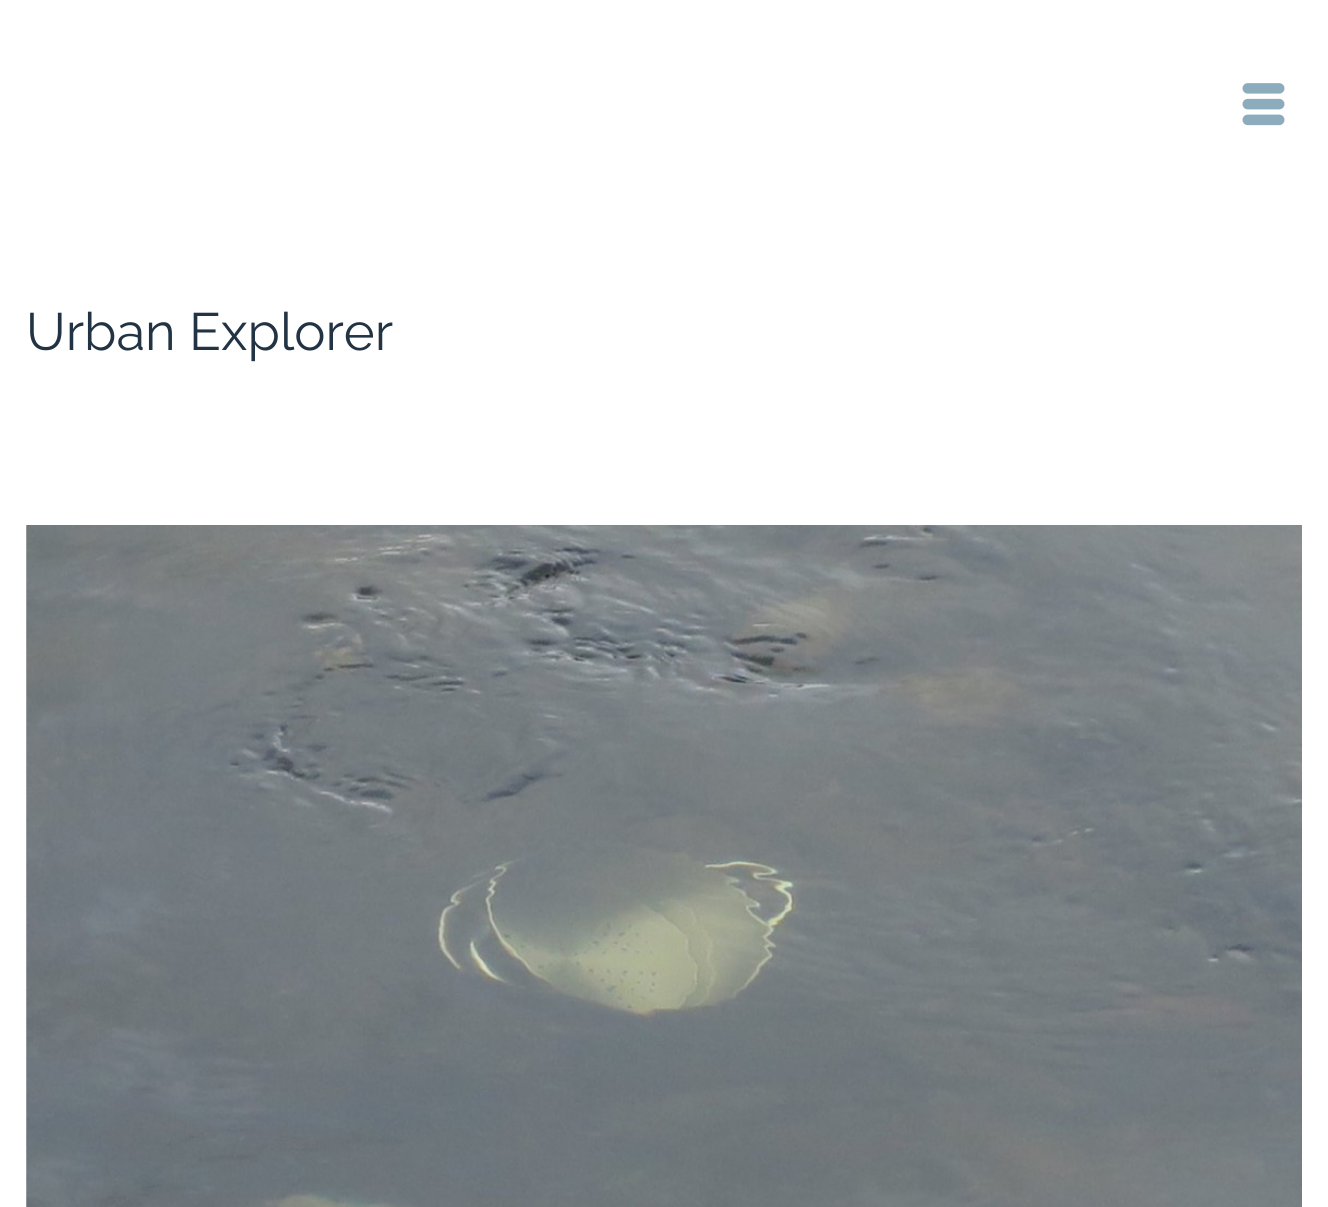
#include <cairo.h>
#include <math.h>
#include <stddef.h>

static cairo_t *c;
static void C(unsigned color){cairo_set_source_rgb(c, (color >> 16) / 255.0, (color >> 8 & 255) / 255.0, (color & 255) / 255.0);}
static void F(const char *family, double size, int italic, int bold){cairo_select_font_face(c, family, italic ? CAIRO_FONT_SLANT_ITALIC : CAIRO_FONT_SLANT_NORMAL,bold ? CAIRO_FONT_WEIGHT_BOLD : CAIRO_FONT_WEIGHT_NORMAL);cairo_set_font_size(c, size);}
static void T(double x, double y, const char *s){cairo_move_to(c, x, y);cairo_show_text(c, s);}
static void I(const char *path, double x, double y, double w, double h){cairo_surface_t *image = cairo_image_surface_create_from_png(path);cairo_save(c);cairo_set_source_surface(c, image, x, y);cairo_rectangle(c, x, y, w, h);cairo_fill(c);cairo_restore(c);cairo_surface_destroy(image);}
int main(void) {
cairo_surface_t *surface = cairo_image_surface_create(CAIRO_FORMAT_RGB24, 1328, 1207);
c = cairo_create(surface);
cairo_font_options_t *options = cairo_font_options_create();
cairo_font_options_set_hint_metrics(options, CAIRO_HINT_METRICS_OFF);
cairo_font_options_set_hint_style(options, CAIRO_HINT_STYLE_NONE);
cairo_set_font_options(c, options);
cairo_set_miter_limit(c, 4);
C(0xffffff);
cairo_paint(c);
I("1.png",1242,83,43,43);
F("Raleway",52.5,0,0);
C(0x223343);
T(26,350,"Urban Explorer");
I("2.png",26,525,1276,682);
cairo_surface_write_to_png(surface, "o.png");
cairo_font_options_destroy(options);
cairo_destroy(c);
cairo_surface_destroy(surface);
return 0;
}
